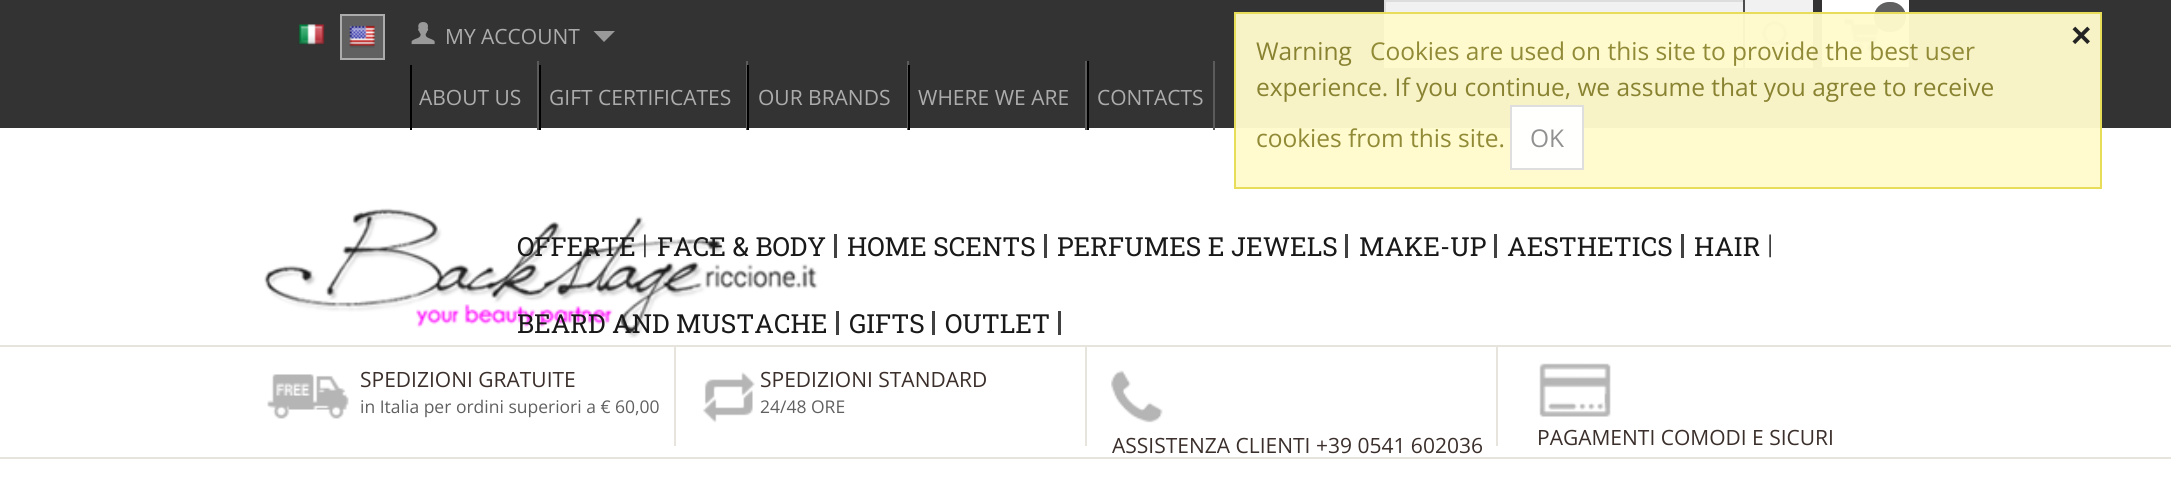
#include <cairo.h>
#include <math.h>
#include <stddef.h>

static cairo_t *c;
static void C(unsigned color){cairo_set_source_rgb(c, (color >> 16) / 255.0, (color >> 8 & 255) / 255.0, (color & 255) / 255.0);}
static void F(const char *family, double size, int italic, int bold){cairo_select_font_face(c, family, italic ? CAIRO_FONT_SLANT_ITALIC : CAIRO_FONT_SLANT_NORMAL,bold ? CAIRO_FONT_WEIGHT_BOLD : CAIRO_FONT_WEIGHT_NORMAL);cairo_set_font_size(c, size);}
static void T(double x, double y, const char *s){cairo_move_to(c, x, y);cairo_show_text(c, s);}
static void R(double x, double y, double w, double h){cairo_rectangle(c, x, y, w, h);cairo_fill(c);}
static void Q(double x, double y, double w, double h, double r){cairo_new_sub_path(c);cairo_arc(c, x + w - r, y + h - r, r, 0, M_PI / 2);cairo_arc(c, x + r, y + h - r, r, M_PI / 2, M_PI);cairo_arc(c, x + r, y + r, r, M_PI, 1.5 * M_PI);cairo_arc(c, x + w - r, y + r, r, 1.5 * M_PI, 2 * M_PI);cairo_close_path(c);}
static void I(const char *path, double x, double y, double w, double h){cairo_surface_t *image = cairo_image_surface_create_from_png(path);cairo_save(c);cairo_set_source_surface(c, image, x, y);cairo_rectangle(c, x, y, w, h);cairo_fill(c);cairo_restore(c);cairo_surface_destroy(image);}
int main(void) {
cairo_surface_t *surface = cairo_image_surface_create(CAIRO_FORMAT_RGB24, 2171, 477);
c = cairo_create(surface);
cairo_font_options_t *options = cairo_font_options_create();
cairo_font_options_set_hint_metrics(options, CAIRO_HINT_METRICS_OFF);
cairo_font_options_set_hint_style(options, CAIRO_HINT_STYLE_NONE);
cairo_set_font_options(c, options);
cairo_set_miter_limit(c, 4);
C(0xffffff);
cairo_paint(c);
C(0x333333);
R(0,0,2171,128);
C(0xf1f1f1);
R(1386,2,357,64);
cairo_rectangle(c,1385,1,362,66);
C(0xdddddd);
cairo_stroke(c);
C(0xf1f1f1);
R(1745,0,68,68);
I("4.png",1761,20,30,30);
C(0x4e4d4d);
R(1743,0,2,68);
C(0xffffff);
R(1822,0,87,67);
I("5.png",1844,18,36,34);
C(0x606060);
Q(1874,2,32,30,15);
cairo_fill(c);
cairo_set_source_rgba(c,1,0.984,0.8,0.96);
R(1234,12,868,177);
cairo_rectangle(c,1235,13,866,175);
cairo_set_source_rgba(c,0.902,0.859,0.333,0.96);
cairo_stroke(c);
F("Liberation Sans",35,0,1);
C(0x242424);
T(2071,47,"×");
F("Open Sans",24.5,0,0);
C(0x888231);
T(1256,60,"Warning");
C(0x918a37);
T(1370,60,"Cookies are used on this site to provide the best user");
C(0x888231);
T(1256,96,"experience. If you continue, we assume that you agree to receive");
C(0x918a37);
T(1256,147,"cookies from this site.");
cairo_set_source_rgba(c,1,1,1,0.96);
cairo_rectangle(c,1511,106,72,63);
cairo_fill_preserve(c);
C(0xdedede);
cairo_stroke(c);
C(0x919191);
T(1530,147,"OK");
I("1.png",298,24,27,21);
C(0x606060);
cairo_rectangle(c,341,15,43,44);
cairo_fill_preserve(c);
C(0xacacac);
cairo_stroke(c);
I("2.png",349,25,26,23);
I("3.png",411,22,24,23);
F("Open Sans",21,0,0);
T(445,44,"MY ACCOUNT");
C(0x999999);
cairo_new_path(c);
cairo_move_to(c,604,42);
cairo_line_to(c,593.5,31);
cairo_line_to(c,615,31);
cairo_close_path(c);
cairo_fill(c);
C(0xacacac);
T(419,105,"ABOUT US");
C(0x000000);
R(410,65,2,65);
C(0x5b5b5b);
R(537,61,2,69);
C(0xacacac);
T(549,105,"GIFT CERTIFICATES");
C(0x000000);
R(539,65,2,65);
C(0x5b5b5b);
R(746,61,2,69);
C(0xacacac);
T(758,105,"OUR BRANDS");
C(0x000000);
R(747,65,2,65);
C(0x5b5b5b);
R(907,61,2,69);
C(0xacacac);
T(918,105,"WHERE WE ARE");
C(0x000000);
R(908,65,2,65);
C(0x5b5b5b);
R(1085,61,2,69);
C(0xacacac);
T(1097,105,"CONTACTS");
C(0x5b5b5b);
R(1213,61,2,69);
C(0x000000);
R(1087,61,2,69);
I("6.png",264,208,554,130);
I("7.png",644,234,2,24);
F("Roboto Slab",26.25,0,0);
C(0x191919);
T(517,256,"OFFERTE");
C(0x414141);
R(834,234,3,24);
C(0x191919);
T(657,256,"FACE & BODY");
C(0x414141);
R(1044,234,3,24);
C(0x191919);
T(847,256,"HOME SCENTS");
C(0x414141);
R(1345,234,3,24);
C(0x191919);
T(1057,256,"PERFUMES E JEWELS");
C(0x414141);
R(1494,234,3,24);
C(0x191919);
T(1359,256,"MAKE-UP");
C(0x414141);
R(1681,234,3,24);
C(0x191919);
T(1507,256,"AESTHETICS");
I("8.png",1769,234,2,24);
T(1694,256,"HAIR");
C(0x414141);
R(836,311,3,24);
C(0x191919);
T(517,333,"BEARD AND MUSTACHE");
C(0x414141);
R(932,311,3,24);
C(0x191919);
T(849,333,"GIFTS");
C(0x414141);
R(1058,311,3,24);
C(0x191919);
T(945,333,"OUTLET");
C(0xe6e4dc);
R(0,345,2171,2);
R(0,457,2171,2);
R(674,347,2,99);
I("9.png",267,374,82,45);
F("Open Sans",21,0,0);
C(0x3b2f2b);
T(360,387,"SPEDIZIONI GRATUITE");
F("Open Sans",17.5,0,0);
C(0x606060);
T(360,413,"in Italia per ordini superiori a € 60,00");
C(0xe6e4dc);
R(1085,347,2,99);
I("10.png",703,372,52,51);
F("Open Sans",21,0,0);
C(0x3b2f2b);
T(760,387,"SPEDIZIONI STANDARD");
F("Open Sans",17.5,0,0);
C(0x606060);
T(760,413,"24/48 ORE");
C(0xe6e4dc);
R(1496,347,2,99);
I("11.png",1111,370,52,53);
F("Open Sans",21,0,0);
C(0x3b2f2b);
T(1112,453,"ASSISTENZA CLIENTI +39 0541 602036");
I("12.png",1539,363,72,54);
T(1537,445,"PAGAMENTI COMODI E SICURI");
cairo_surface_write_to_png(surface, "o.png");
cairo_font_options_destroy(options);
cairo_destroy(c);
cairo_surface_destroy(surface);
return 0;
}
